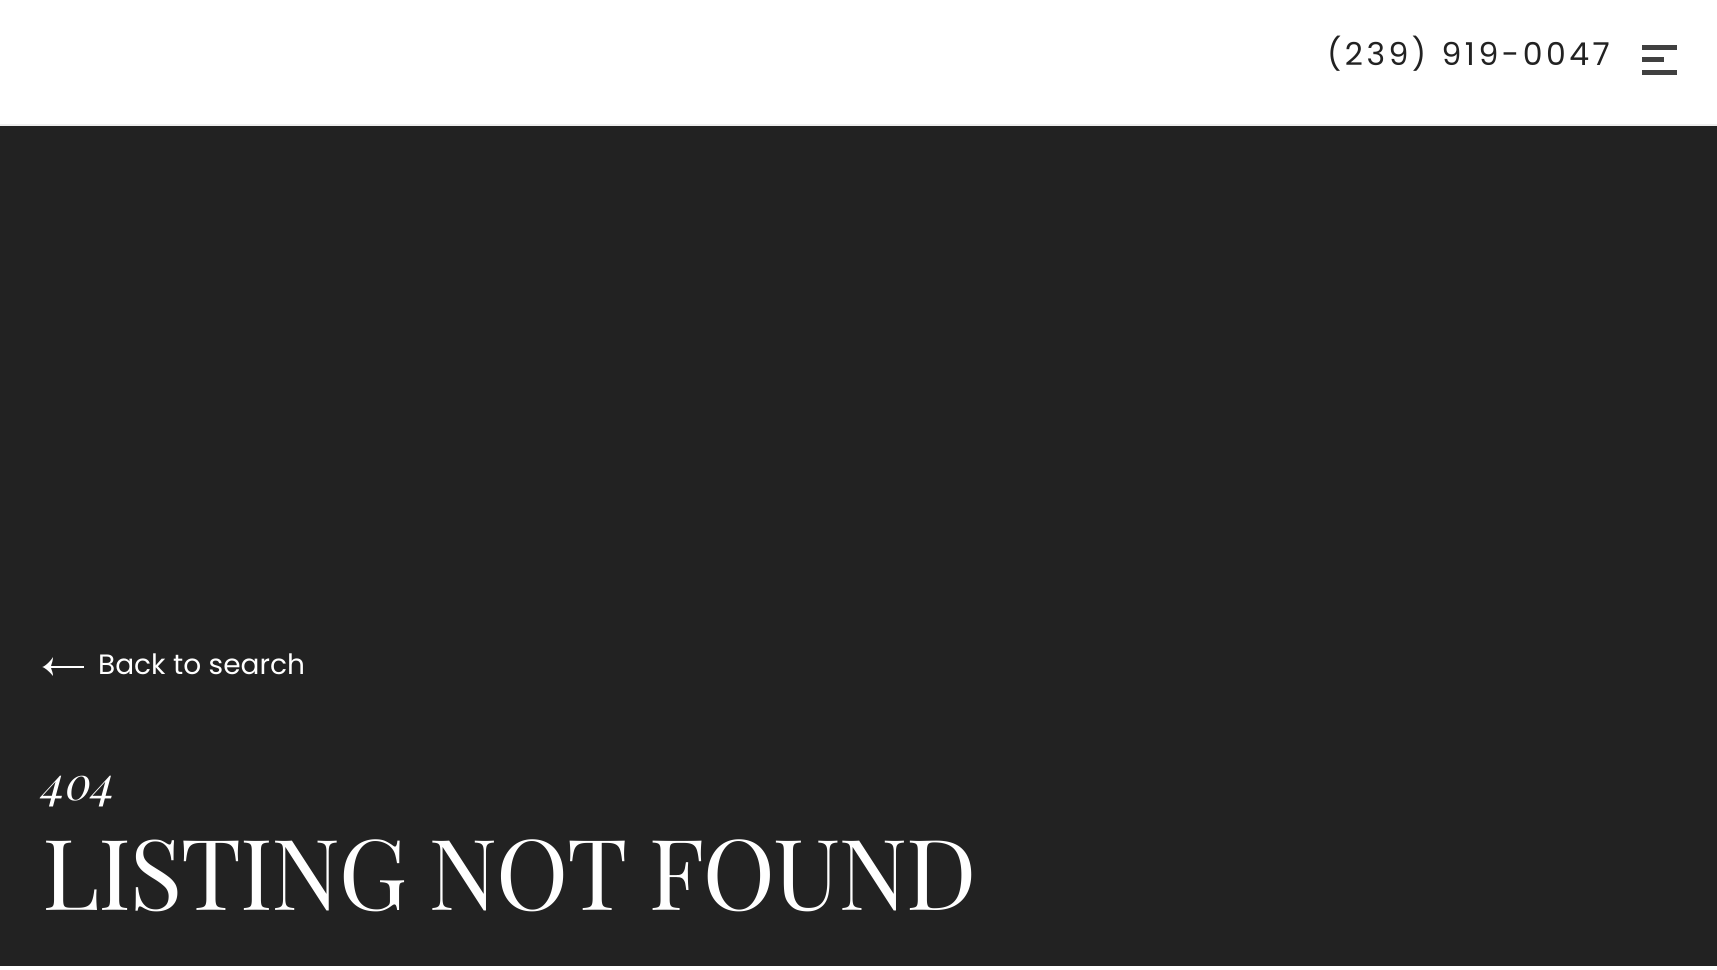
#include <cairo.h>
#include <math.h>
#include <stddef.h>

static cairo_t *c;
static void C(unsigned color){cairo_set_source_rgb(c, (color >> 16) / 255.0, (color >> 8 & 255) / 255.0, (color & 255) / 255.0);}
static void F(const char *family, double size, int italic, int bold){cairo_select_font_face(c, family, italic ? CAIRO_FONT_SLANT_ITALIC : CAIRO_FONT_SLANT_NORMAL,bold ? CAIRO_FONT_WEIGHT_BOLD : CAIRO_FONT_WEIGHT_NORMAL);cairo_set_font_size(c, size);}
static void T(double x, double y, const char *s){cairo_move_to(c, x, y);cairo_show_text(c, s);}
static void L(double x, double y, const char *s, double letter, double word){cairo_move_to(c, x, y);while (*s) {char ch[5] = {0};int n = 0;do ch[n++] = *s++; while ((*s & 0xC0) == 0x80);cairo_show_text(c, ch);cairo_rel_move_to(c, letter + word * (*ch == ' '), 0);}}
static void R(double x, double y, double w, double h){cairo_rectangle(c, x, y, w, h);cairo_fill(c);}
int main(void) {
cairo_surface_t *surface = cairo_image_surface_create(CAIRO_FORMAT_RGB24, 1717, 970);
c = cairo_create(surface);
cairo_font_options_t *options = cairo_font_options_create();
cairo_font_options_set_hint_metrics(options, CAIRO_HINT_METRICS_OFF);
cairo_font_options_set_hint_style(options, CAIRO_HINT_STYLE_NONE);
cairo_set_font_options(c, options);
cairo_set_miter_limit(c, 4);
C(0xffffff);
cairo_paint(c);
C(0xeeeeee);
R(0,124,1717,2);
F("Poppins",31.5,0,0);
C(0x222222);
L(1327,65,"(239) 919-0047",3.5,0);
C(0x404040);
R(1642,45,35,5);
R(1642,57,22,5);
R(1642,70,35,5);
C(0x222222);
R(0,126,1717,840);
C(0xffffff);
cairo_new_path(c);
cairo_move_to(c,84,666);
cairo_line_to(c,51,666);
cairo_curve_to(c,52,663,53,660,53,657);
cairo_curve_to(c,50,662,44,667,42,667);
cairo_curve_to(c,44,667,50,672,53,676);
cairo_curve_to(c,53,673,52,671,51,668);
cairo_line_to(c,84,668);
cairo_close_path(c);
cairo_fill(c);
F("Poppins",28,0,0);
T(98,674,"Back to search");
F("Playfair Display",46,1,0);
T(42,800,"404");
F("Playfair Display",98,0,0);
L(42,910,"LISTING NOT FOUND",-1.75,0);
cairo_surface_write_to_png(surface, "o.png");
cairo_font_options_destroy(options);
cairo_destroy(c);
cairo_surface_destroy(surface);
return 0;
}
